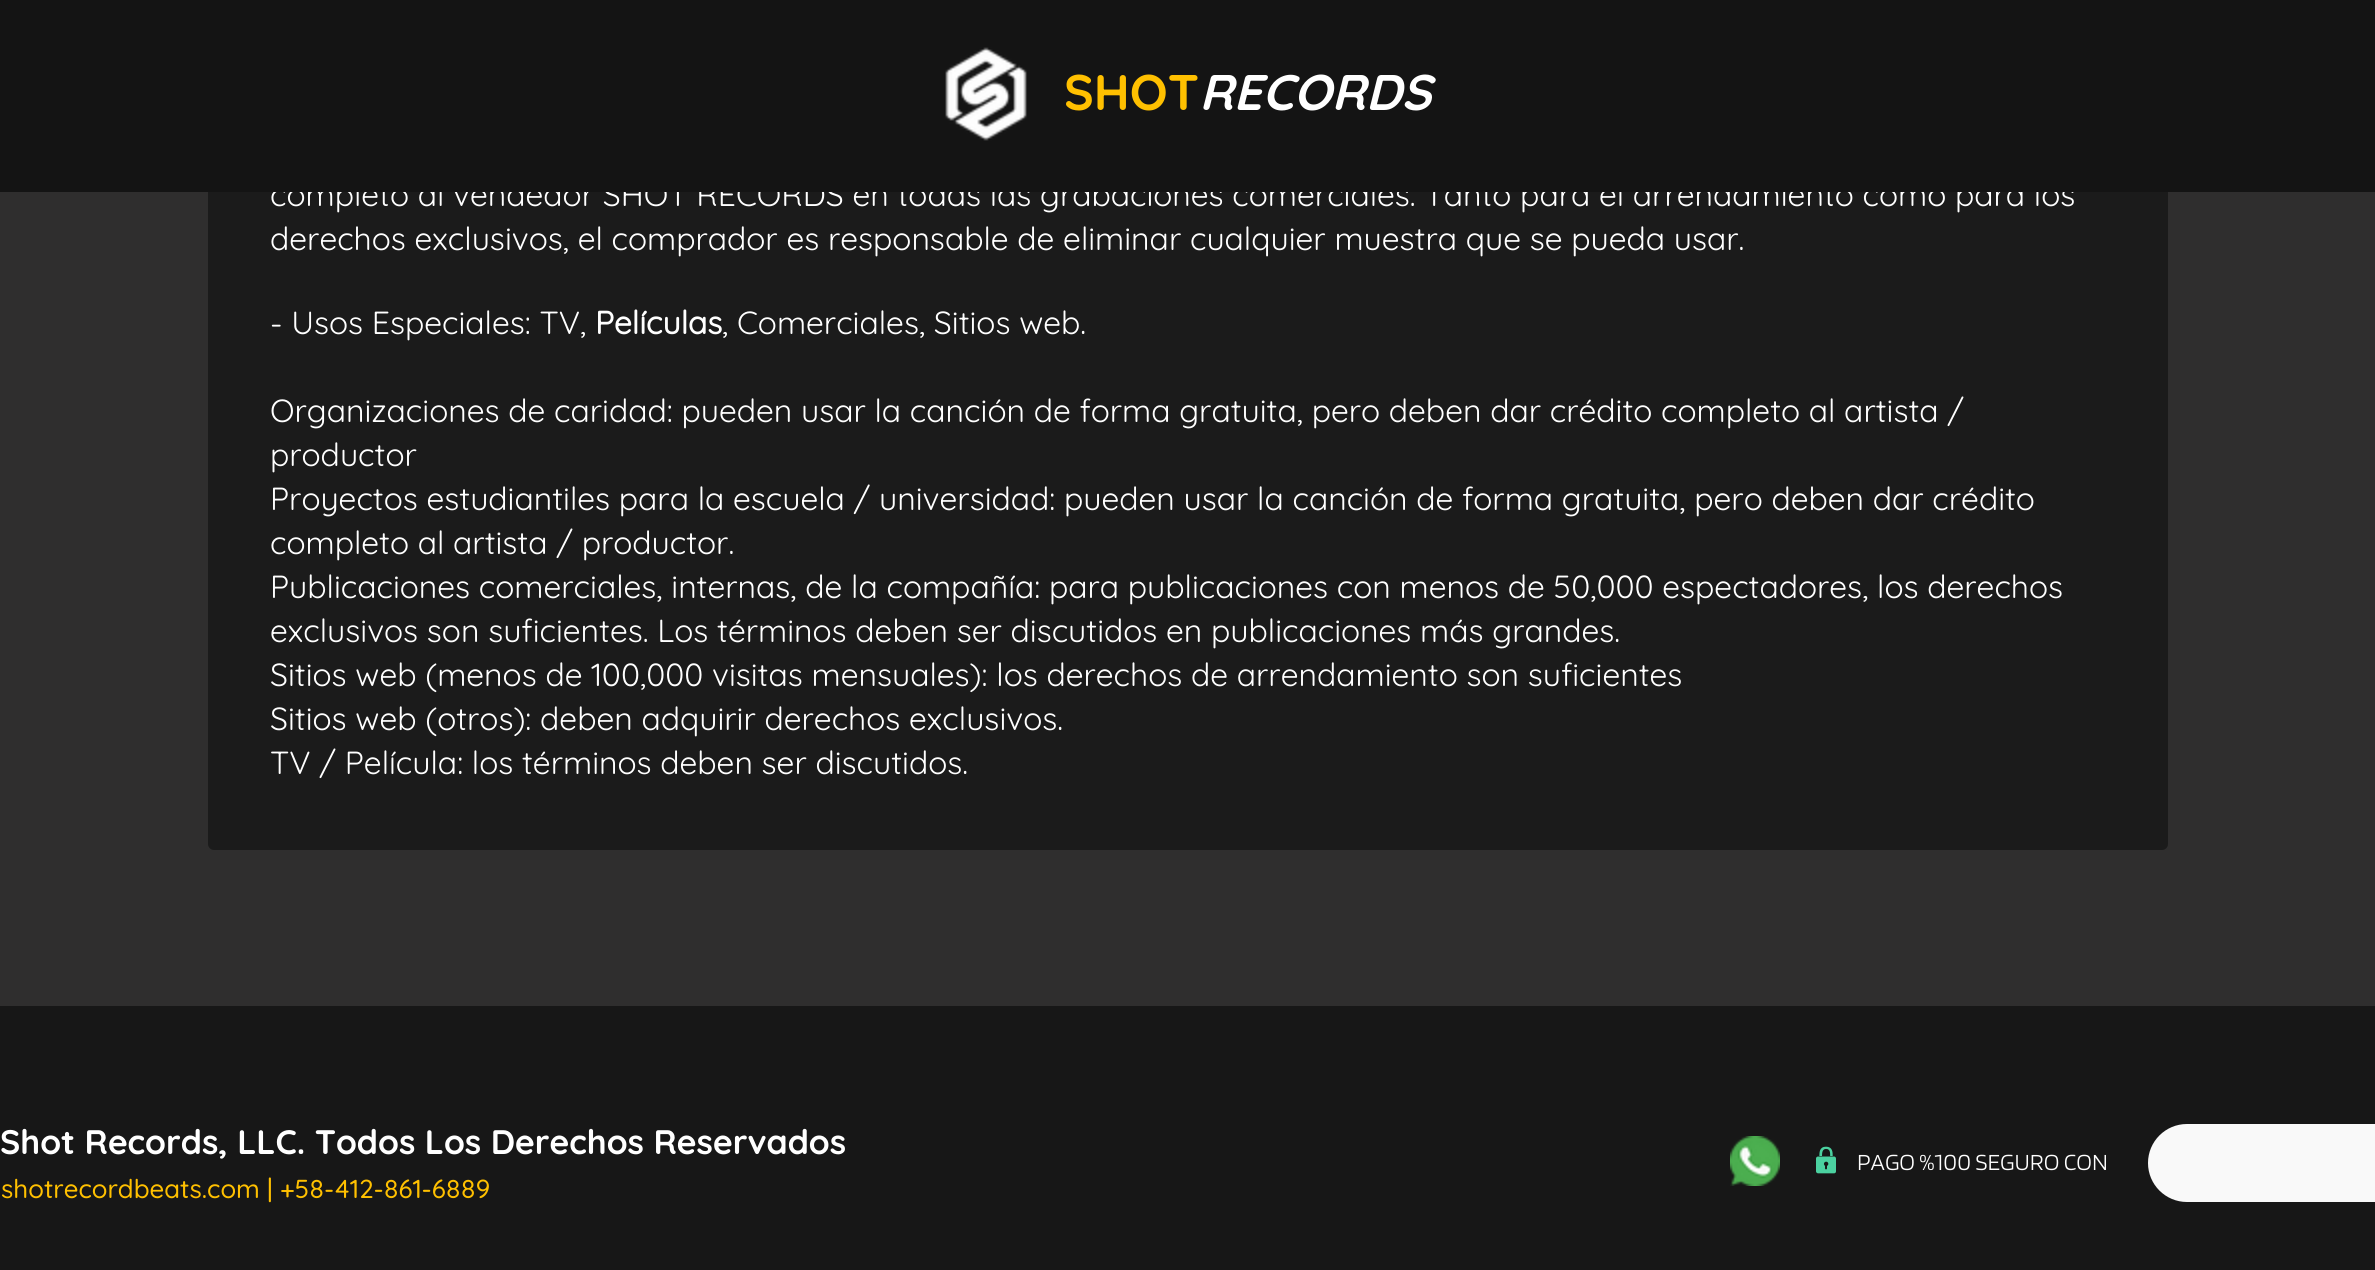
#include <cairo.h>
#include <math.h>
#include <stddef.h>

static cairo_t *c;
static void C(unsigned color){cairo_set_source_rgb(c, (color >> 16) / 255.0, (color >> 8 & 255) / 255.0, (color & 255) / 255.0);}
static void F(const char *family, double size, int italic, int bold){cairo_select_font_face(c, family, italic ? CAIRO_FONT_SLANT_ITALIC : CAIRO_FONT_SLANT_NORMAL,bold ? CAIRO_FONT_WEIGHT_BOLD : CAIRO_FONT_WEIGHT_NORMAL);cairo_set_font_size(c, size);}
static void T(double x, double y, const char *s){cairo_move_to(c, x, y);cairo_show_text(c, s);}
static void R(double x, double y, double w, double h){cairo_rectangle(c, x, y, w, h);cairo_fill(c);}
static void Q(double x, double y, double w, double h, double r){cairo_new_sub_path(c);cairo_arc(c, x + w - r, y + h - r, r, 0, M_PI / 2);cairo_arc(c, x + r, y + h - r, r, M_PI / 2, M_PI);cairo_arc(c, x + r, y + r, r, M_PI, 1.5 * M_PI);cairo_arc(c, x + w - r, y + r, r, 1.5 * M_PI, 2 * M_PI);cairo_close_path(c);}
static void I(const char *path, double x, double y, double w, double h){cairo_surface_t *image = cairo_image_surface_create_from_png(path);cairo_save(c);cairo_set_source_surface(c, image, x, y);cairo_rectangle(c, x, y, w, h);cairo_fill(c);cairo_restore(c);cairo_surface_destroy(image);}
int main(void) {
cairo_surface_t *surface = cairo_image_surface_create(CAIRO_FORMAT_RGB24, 2375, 1270);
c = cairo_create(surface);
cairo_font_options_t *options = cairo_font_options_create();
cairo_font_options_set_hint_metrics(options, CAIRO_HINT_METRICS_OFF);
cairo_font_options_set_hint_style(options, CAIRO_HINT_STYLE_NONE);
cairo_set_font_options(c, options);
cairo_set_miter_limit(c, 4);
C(0x2f2e2e);
cairo_paint(c);
C(0x1b1b1b);
Q(208,-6,1960,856,6);
cairo_fill(c);
F("Quicksand",32,0,0);
C(0xffffff);
T(270,206,"completo al vendedor SHOT RECORDS en todas las grabaciones comerciales. Tanto para el arrendamiento como para los");
C(0x141414);
R(0,0,2375,192);
I("1.png",945,47,82,94);
F("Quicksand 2",50,0,1);
C(0xffc000);
T(1064,110,"SHOT");
F("Quicksand",50,1,1);
C(0xffffff);
T(1199,110,"RECORDS");
F("Quicksand",32,0,0);
T(270,250,"derechos exclusivos, el comprador es responsable de eliminar cualquier muestra que se pueda usar.");
T(270,334,"- Usos Especiales: TV,");
F("Quicksand",32,0,1);
T(595,334,"Películas");
F("Quicksand",32,0,0);
T(722,334,", Comerciales, Sitios web.");
T(270,422,"Organizaciones de caridad: pueden usar la canción de forma gratuita, pero deben dar crédito completo al artista /");
T(270,466,"productor");
T(270,510,"Proyectos estudiantiles para la escuela / universidad: pueden usar la canción de forma gratuita, pero deben dar crédito");
T(270,554,"completo al artista / productor.");
T(270,598,"Publicaciones comerciales, internas, de la compañía: para publicaciones con menos de 50,000 espectadores, los derechos");
T(270,642,"exclusivos son suficientes. Los términos deben ser discutidos en publicaciones más grandes.");
T(270,686,"Sitios web (menos de 100,000 visitas mensuales): los derechos de arrendamiento son suficientes");
T(270,730,"Sitios web (otros): deben adquirir derechos exclusivos.");
T(270,774,"TV / Película: los términos deben ser discutidos.");
C(0x171717);
R(0,1006,2375,264);
F("Quicksand 2",34,0,1);
C(0xffffff);
T(0,1154,"Shot Records, LLC. Todos Los Derechos Reservados");
I("2.png",1730,1136,50,50);
I("3.png",1816,1146,20,28);
F("Blinker ExtraLight",24,0,0);
T(1857,1170,"PAGO %100 SEGURO CON");
C(0xf9f9f9);
Q(2148,1124,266,78,39);
cairo_fill(c);
F("Quicksand Medium",26,0,0);
C(0xffc000);
T(1,1198,"shotrecordbeats.com | +58-412-861-6889");
cairo_surface_write_to_png(surface, "o.png");
cairo_font_options_destroy(options);
cairo_destroy(c);
cairo_surface_destroy(surface);
return 0;
}
